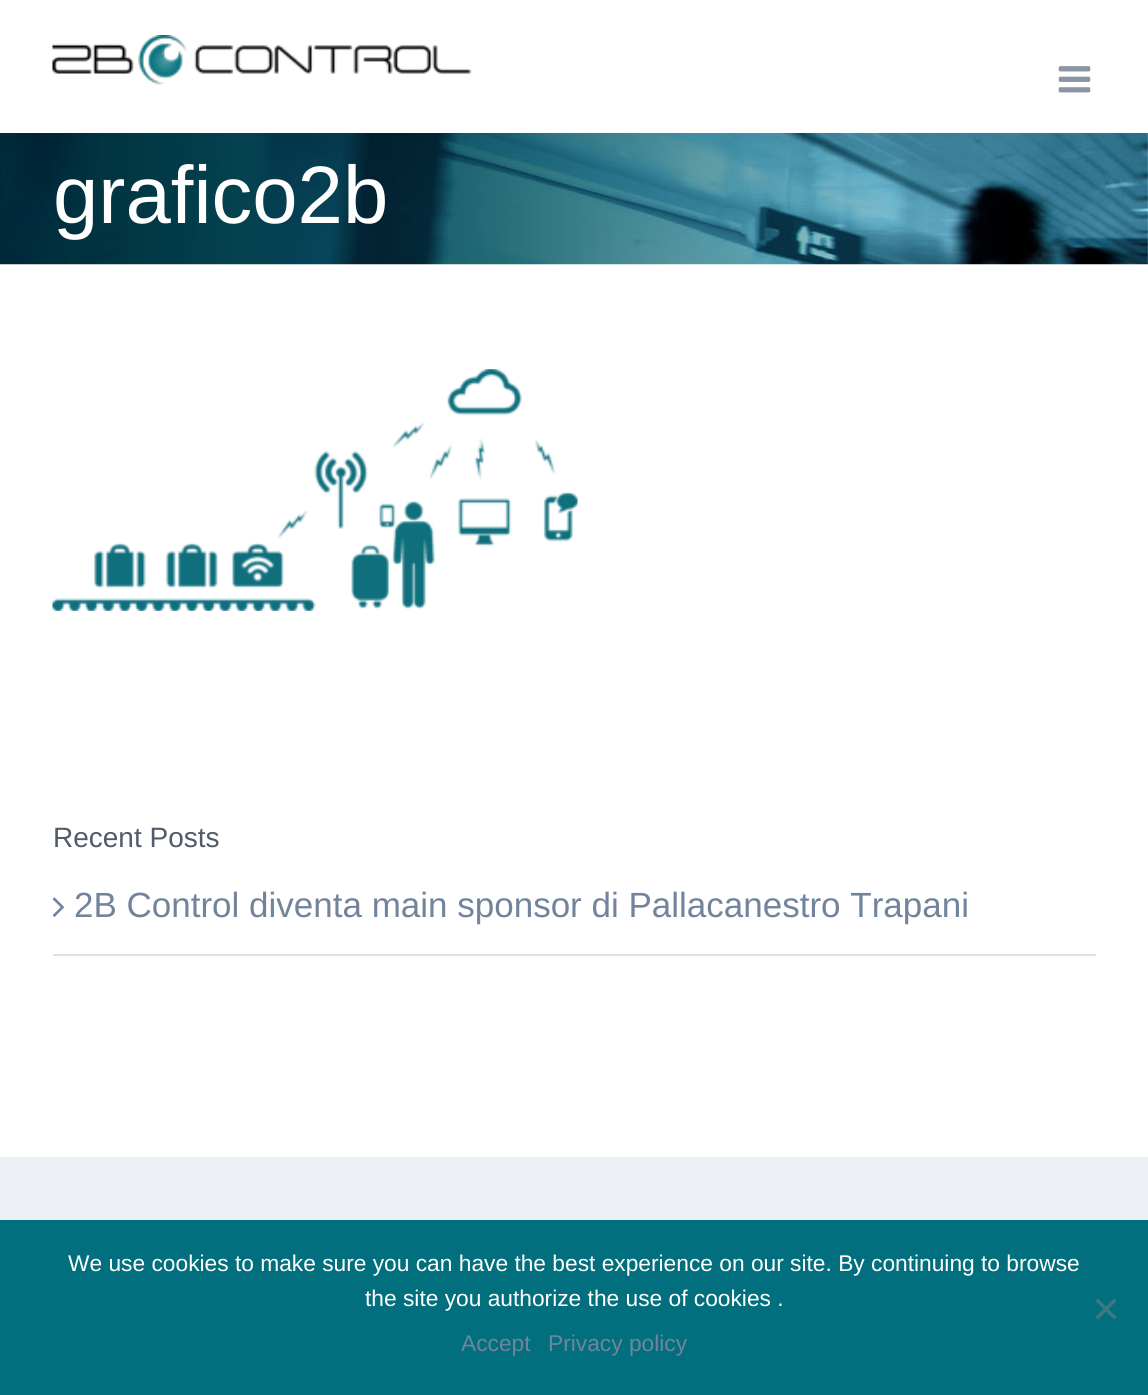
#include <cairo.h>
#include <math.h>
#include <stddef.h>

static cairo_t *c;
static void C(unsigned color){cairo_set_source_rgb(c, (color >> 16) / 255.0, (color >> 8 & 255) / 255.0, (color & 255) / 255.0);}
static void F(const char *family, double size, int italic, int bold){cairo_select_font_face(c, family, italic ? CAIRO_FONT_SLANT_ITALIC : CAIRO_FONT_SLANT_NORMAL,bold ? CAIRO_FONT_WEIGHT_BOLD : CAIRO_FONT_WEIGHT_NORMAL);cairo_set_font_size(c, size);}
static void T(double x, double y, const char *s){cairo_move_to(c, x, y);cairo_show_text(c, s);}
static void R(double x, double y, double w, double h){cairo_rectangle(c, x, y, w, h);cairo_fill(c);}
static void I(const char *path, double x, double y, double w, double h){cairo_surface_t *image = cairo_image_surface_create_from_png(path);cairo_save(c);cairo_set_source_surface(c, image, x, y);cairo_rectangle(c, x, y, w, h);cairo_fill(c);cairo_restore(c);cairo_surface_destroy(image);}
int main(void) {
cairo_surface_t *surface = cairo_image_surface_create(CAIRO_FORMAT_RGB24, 1148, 1395);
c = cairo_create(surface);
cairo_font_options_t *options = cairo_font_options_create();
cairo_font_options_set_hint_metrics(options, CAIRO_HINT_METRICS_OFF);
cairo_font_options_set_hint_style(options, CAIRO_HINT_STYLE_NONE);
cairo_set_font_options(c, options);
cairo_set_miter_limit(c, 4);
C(0xffffff);
cairo_paint(c);
I("1.png",52,35,420,50);
I("2.png",1058,66,33,27);
I("3.png",0,133,1148,132);
F("Liberation Sans",81.5,0,0);
C(0xffffff);
T(53,223,"grafico2b");
I("4.png",52,369,526,242);
F("Liberation Sans",28,0,0);
C(0x515b69);
T(53,847,"Recent Posts");
C(0xdbe2ea);
R(53,954,1043,2);
I("5.png",52,897,13,20);
F("Liberation Sans",35,0,0);
C(0x72849c);
T(74,917,"2B Control diventa main sponsor di Pallacanestro Trapani");
C(0xecf0f5);
R(0,1157,1148,63);
C(0x016f7d);
R(0,1220,1148,175);
F("Liberation Sans",22.75,0,0);
C(0xffffff);
T(68,1271,"We use cookies to make sure you can have the best experience on our site. By continuing to browse");
T(365,1306,"the site you authorize the use of cookies .");
C(0x41787f);
cairo_new_path(c);
cairo_move_to(c,1114,1298.5);
cairo_line_to(c,1116.5,1301);
cairo_line_to(c,1098,1319.5);
cairo_line_to(c,1095.5,1317);
cairo_close_path(c);
cairo_fill(c);
cairo_new_path(c);
cairo_move_to(c,1095.5,1301);
cairo_line_to(c,1098,1298.5);
cairo_line_to(c,1116.5,1317);
cairo_line_to(c,1114,1319.5);
cairo_close_path(c);
cairo_fill(c);
C(0x72849c);
T(461,1351,"Accept");
T(548,1351,"Privacy policy");
cairo_surface_write_to_png(surface, "o.png");
cairo_font_options_destroy(options);
cairo_destroy(c);
cairo_surface_destroy(surface);
return 0;
}
